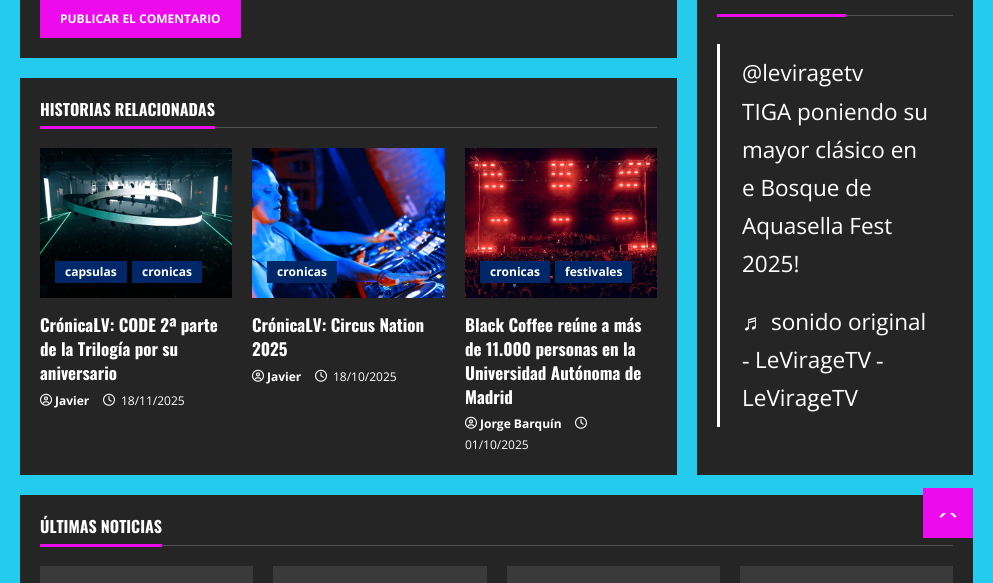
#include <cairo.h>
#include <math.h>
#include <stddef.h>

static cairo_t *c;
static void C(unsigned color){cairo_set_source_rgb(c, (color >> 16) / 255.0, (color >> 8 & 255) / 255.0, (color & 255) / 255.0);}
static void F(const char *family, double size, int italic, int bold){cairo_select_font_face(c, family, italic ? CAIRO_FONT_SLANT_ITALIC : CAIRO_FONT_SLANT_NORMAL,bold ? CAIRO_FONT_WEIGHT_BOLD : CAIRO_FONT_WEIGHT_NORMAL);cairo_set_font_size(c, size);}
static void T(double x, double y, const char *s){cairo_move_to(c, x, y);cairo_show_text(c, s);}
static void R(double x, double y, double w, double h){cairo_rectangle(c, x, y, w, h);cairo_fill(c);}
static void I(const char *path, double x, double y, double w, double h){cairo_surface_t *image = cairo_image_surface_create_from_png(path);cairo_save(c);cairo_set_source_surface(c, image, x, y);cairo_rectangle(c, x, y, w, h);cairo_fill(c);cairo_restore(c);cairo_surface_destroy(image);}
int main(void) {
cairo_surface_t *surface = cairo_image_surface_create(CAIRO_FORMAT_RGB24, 993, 583);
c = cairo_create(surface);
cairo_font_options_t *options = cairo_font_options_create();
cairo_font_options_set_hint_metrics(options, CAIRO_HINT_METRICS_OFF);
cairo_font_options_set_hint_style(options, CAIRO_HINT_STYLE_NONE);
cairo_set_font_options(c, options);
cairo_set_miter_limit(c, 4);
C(0x25cbed);
cairo_paint(c);
C(0x252525);
R(20,0,657,58);
C(0xed0bed);
R(40,0,201,38);
F("Open Sans",12,0,1);
C(0xffffff);
T(60,23,"PUBLICAR EL COMENTARIO");
C(0x252525);
R(20,78,657,397);
C(0x515151);
R(215,127,442,1);
F("Oswald",16,0,1);
C(0xffffff);
T(40,116,"HISTORIAS RELACIONADAS");
C(0xed0bed);
R(40,126,175,3);
I("1.png",40,148,192,150);
C(0x002868);
R(55,261,72,22);
F("Open Sans",12,0,1);
C(0xffffff);
T(65,276,"capsulas");
C(0x002868);
R(132,261,70,22);
C(0xffffff);
T(142,276,"cronicas");
F("Oswald",17,0,1);
T(40,332,"CrónicaLV: CODE 2ª parte");
T(40,356,"de la Trilogía por su");
T(40,380,"aniversario");
I("2.png",40,393,12,13);
F("Open Sans",12,0,1);
T(55,405,"Javier");
I("3.png",103,393,12,13);
F("Open Sans",12,0,0);
T(121,405,"18/11/2025");
I("4.png",252,148,193,150);
C(0x002868);
R(267,261,70,22);
F("Open Sans",12,0,1);
C(0xffffff);
T(277,276,"cronicas");
F("Oswald",17,0,1);
T(252,332,"CrónicaLV: Circus Nation");
T(252,356,"2025");
I("2.png",252,369,12,13);
F("Open Sans",12,0,1);
T(267,381,"Javier");
I("3.png",315,369,12,13);
F("Open Sans",12,0,0);
T(333,381,"18/10/2025");
I("5.png",465,148,192,150);
C(0x002868);
R(480,261,70,22);
F("Open Sans",12,0,1);
C(0xffffff);
T(490,276,"cronicas");
C(0x002868);
R(555,261,77,22);
C(0xffffff);
T(565,276,"festivales");
F("Oswald",17,0,1);
T(465,332,"Black Coffee reúne a más");
T(465,356,"de 11.000 personas en la");
T(465,380,"Universidad Autónoma de");
T(465,404,"Madrid");
I("2.png",465,416,12,13);
F("Open Sans",12,0,1);
T(480,428,"Jorge Barquín");
I("3.png",575,416,12,13);
F("Open Sans",12,0,0);
T(465,449,"01/10/2025");
C(0x252525);
R(697,0,276,475);
C(0x515151);
R(846,15,107,1);
C(0xed0bed);
R(717,14,129,3);
C(0xffffff);
R(717,44,3,383);
F("Open Sans",22.5,0,0);
T(742,81,"@leviragetv");
T(742,120,"TIGA poniendo su");
T(742,158,"mayor clásico en");
T(742,196,"e Bosque de");
T(742,234,"Aquasella Fest");
T(742,272,"2025!");
F("Liberation Serif",22.5,0,0);
T(742,330,"♬");
F("Open Sans",22.5,0,0);
T(771,330,"sonido original");
F("Liberation Serif",22.5,0,0);
T(742,368,"-");
F("Open Sans",22.5,0,0);
T(755,368,"LeVirageTV");
F("Liberation Serif",22.5,0,0);
T(876,368,"-");
F("Open Sans",22.5,0,0);
T(742,406,"LeVirageTV");
C(0x252525);
R(20,495,953,88);
C(0x515151);
R(162,545,791,1);
F("Oswald",16,0,1);
C(0xffffff);
T(40,533,"ÚLTIMAS NOTICIAS");
C(0xed0bed);
R(40,544,122,3);
C(0x3a3a3a);
R(40,566,213,17);
R(273,566,214,17);
R(507,566,213,17);
R(740,566,213,17);
C(0xed0bed);
R(923,488,50,50);
C(0xffffff);
cairo_new_path(c);
cairo_move_to(c,943,518);
cairo_curve_to(c,946,518,954.5,519,956.5,516.5);
cairo_line_to(c,953,513);
cairo_line_to(c,943,513);
cairo_line_to(c,939.5,516.5);
cairo_curve_to(c,940,517.5,941.5,518,943,518);
cairo_close_path(c);
cairo_fill(c);
C(0xed0bed);
cairo_new_path(c);
cairo_move_to(c,958,521);
cairo_line_to(c,938,521);
cairo_line_to(c,948,511);
cairo_close_path(c);
cairo_fill(c);
cairo_surface_write_to_png(surface, "o.png");
cairo_font_options_destroy(options);
cairo_destroy(c);
cairo_surface_destroy(surface);
return 0;
}
